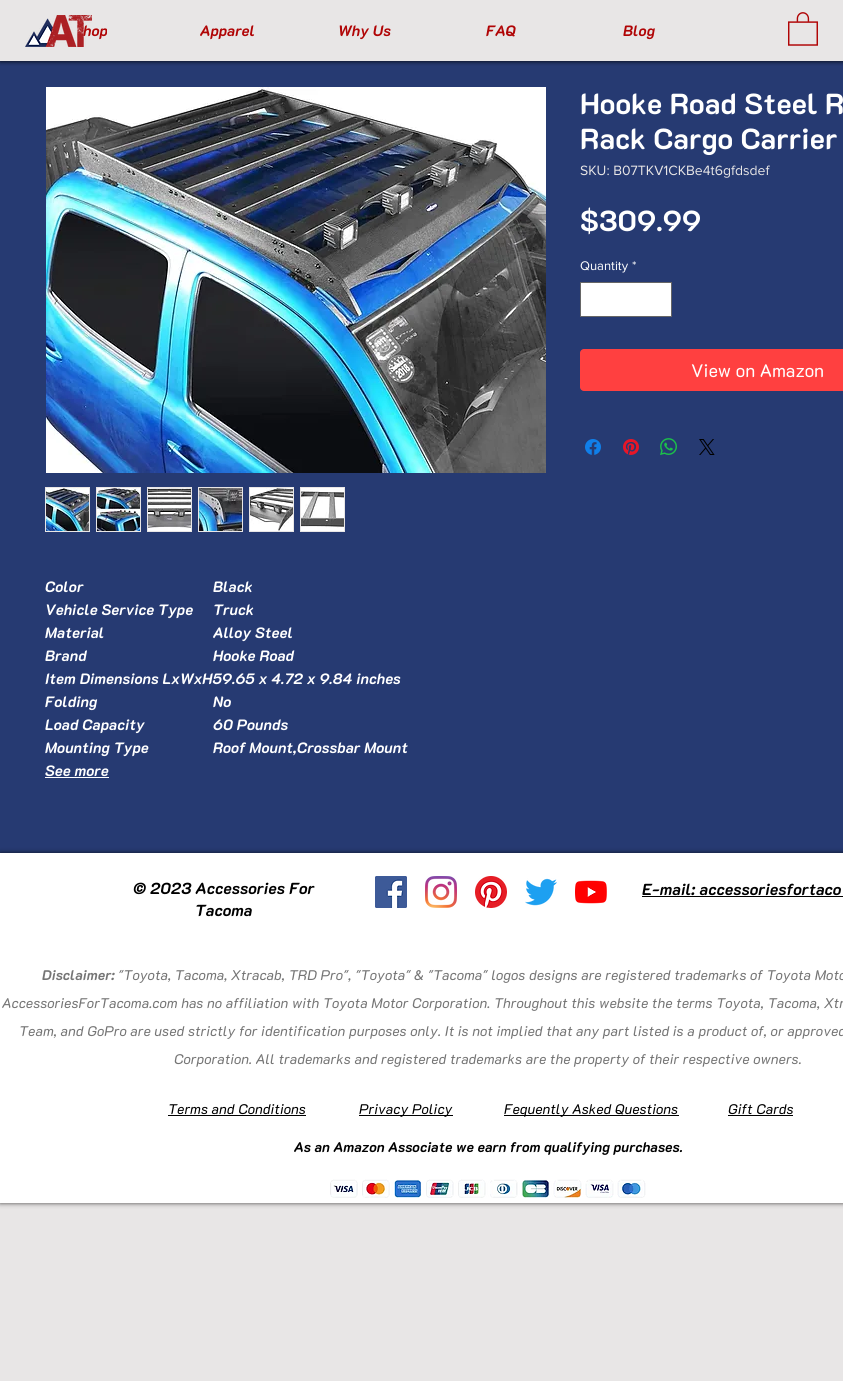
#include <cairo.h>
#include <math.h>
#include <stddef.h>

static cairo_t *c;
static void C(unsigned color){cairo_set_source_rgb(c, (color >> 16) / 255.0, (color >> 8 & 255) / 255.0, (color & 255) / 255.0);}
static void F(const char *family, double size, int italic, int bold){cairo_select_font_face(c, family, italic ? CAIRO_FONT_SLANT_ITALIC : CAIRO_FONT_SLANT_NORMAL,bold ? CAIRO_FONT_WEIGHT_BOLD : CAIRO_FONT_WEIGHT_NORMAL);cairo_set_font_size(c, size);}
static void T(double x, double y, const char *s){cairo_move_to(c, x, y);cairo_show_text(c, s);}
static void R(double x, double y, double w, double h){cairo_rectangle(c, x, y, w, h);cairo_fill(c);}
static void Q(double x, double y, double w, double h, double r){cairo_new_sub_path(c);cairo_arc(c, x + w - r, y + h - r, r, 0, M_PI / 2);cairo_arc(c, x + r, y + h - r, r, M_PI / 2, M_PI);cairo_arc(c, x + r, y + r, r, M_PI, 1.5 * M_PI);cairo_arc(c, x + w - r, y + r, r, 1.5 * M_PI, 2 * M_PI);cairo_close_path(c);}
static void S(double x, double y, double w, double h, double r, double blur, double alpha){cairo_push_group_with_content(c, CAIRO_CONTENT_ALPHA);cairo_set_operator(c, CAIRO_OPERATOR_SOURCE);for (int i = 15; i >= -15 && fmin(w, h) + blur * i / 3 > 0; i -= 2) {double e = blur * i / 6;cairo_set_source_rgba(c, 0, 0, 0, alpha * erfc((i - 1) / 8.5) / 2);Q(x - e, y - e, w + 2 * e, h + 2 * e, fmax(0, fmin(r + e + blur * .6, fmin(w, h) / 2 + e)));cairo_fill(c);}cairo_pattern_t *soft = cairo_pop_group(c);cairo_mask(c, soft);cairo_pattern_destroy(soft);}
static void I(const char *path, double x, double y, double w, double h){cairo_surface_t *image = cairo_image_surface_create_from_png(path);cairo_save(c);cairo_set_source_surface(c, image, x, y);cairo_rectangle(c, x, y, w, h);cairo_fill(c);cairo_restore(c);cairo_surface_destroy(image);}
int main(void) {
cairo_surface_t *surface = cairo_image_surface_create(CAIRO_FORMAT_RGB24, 843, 1381);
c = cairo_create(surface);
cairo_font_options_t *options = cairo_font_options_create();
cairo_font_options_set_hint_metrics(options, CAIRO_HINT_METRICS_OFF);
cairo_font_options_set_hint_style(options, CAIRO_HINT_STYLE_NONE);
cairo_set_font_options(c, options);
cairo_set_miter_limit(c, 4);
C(0xe8e6e6);
cairo_paint(c);
C(0x263a72);
R(0,61,843,792);
cairo_save(c);
cairo_rectangle(c,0,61,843,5);
cairo_clip(c);
C(0x000000);
S(0,0,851,61,0,2.5,1);
cairo_restore(c);
F("K2D",15,1,1);
C(0xb00405);
T(83,36,"hop");
I("1.png",25,15,67,32);
T(200,36,"Apparel");
T(338,36,"Why Us");
T(486,36,"FAQ");
T(623,36,"Blog");
I("2.png",788,12,30,34);
F("K2D",29,0,1);
C(0xffffff);
T(580,114,"Hooke Road Steel R");
T(580,149,"Rack Cargo Carrier");
F("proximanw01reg",14,0,0);
C(0xe8e6e6);
T(580,175,"SKU: B07TKV1CKBe4t6gfdsdef");
F("K2D",29,0,1);
C(0xffffff);
T(580,231,"$309.99");
F("proximanw01reg",13,0,0);
T(580,270,"Quantity");
T(632,270,"*");
cairo_rectangle(c,580.5,282.5,91,34);
cairo_fill_preserve(c);
C(0x666666);
cairo_set_line_width(c,1);
cairo_stroke(c);
C(0xff4040);
Q(580,349,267,42,4);
cairo_fill(c);
F("K2D",18,0,0);
C(0xffffff);
T(691,377,"View on Amazon");
I("3.png",585,439,16,16);
I("4.png",623,439,16,16);
I("5.png",660,438,17,17);
I("6.png",699,439,16,16);
I("7.png",46,87,500,386);
C(0xe8e6e6);
R(45,487,45,45);
I("8.png",46,488,43,43);
R(96,487,45,45);
I("9.png",97,488,43,43);
R(147,487,45,45);
I("10.png",148,488,43,43);
R(198,487,45,45);
I("11.png",199,488,43,43);
R(249,487,45,45);
I("12.png",250,488,43,43);
R(300,487,45,45);
I("13.png",301,488,43,43);
F("K2D",15,1,1);
C(0xffffff);
T(45,592,"Color");
T(213,592,"Black");
T(45,615,"Vehicle Service Type");
T(213,615,"Truck");
T(45,638,"Material");
T(213,638,"Alloy Steel");
T(45,661,"Brand");
T(213,661,"Hooke Road");
T(45,684,"Item Dimensions LxWxH59.65 x 4.72 x 9.84 inches");
T(45,707,"Folding");
T(213,707,"No");
T(45,730,"Load Capacity");
T(213,730,"60 Pounds");
T(45,753,"Mounting Type");
T(213,753,"Roof Mount,Crossbar Mount");
T(45,776,"See more");
R(45,777,64,1);
C(0x000000);
S(0,853,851,350,0,2.5,.7);
C(0xffffff);
R(0,853,843,350);
F("K2D",16,1,1);
C(0x000000);
T(133,894,"© 2023 Accessories For");
T(195,916,"Tacoma");
I("14.png",375,876,32,32);
I("15.png",425,876,32,32);
I("16.png",475,876,32,32);
I("17.png",525,878,32,28);
I("18.png",575,880,32,24);
T(642,895,"E-mail: accessoriesfortaco");
R(642,896,201,1);
F("K2D",14,1,1);
C(0x757575);
T(42,980,"Disclaimer:");
F("K2D",14,1,0);
T(118,980,"\"Toyota, Tacoma, Xtracab, TRD Pro\", \"Toyota\" & \"Tacoma\" logos designs are registered trademarks of Toyota Moto");
T(2,1008,"AccessoriesForTacoma.com has no affiliation with Toyota Motor Corporation. Throughout this website the terms Toyota, Tacoma, Xtr");
T(19,1036,"Team, and GoPro are used strictly for identification purposes only. It is not implied that any part listed is a product of, or approved");
T(174,1064,"Corporation. All trademarks and registered trademarks are the property of their respective owners.");
C(0x000000);
T(168,1114,"Terms and Conditions");
R(168,1115,138,1);
R(359,1115,94,1);
T(359,1114,"Privacy Policy");
R(504,1115,175,1);
T(504,1114,"Fequently Asked Questions");
T(728,1114,"Gift Cards");
R(728,1115,65,1);
F("K2D",14,1,1);
T(294,1152,"As an Amazon Associate we earn from qualifying purchases.");
I("19.png",330,1179,316,19);
cairo_surface_write_to_png(surface, "o.png");
cairo_font_options_destroy(options);
cairo_destroy(c);
cairo_surface_destroy(surface);
return 0;
}
